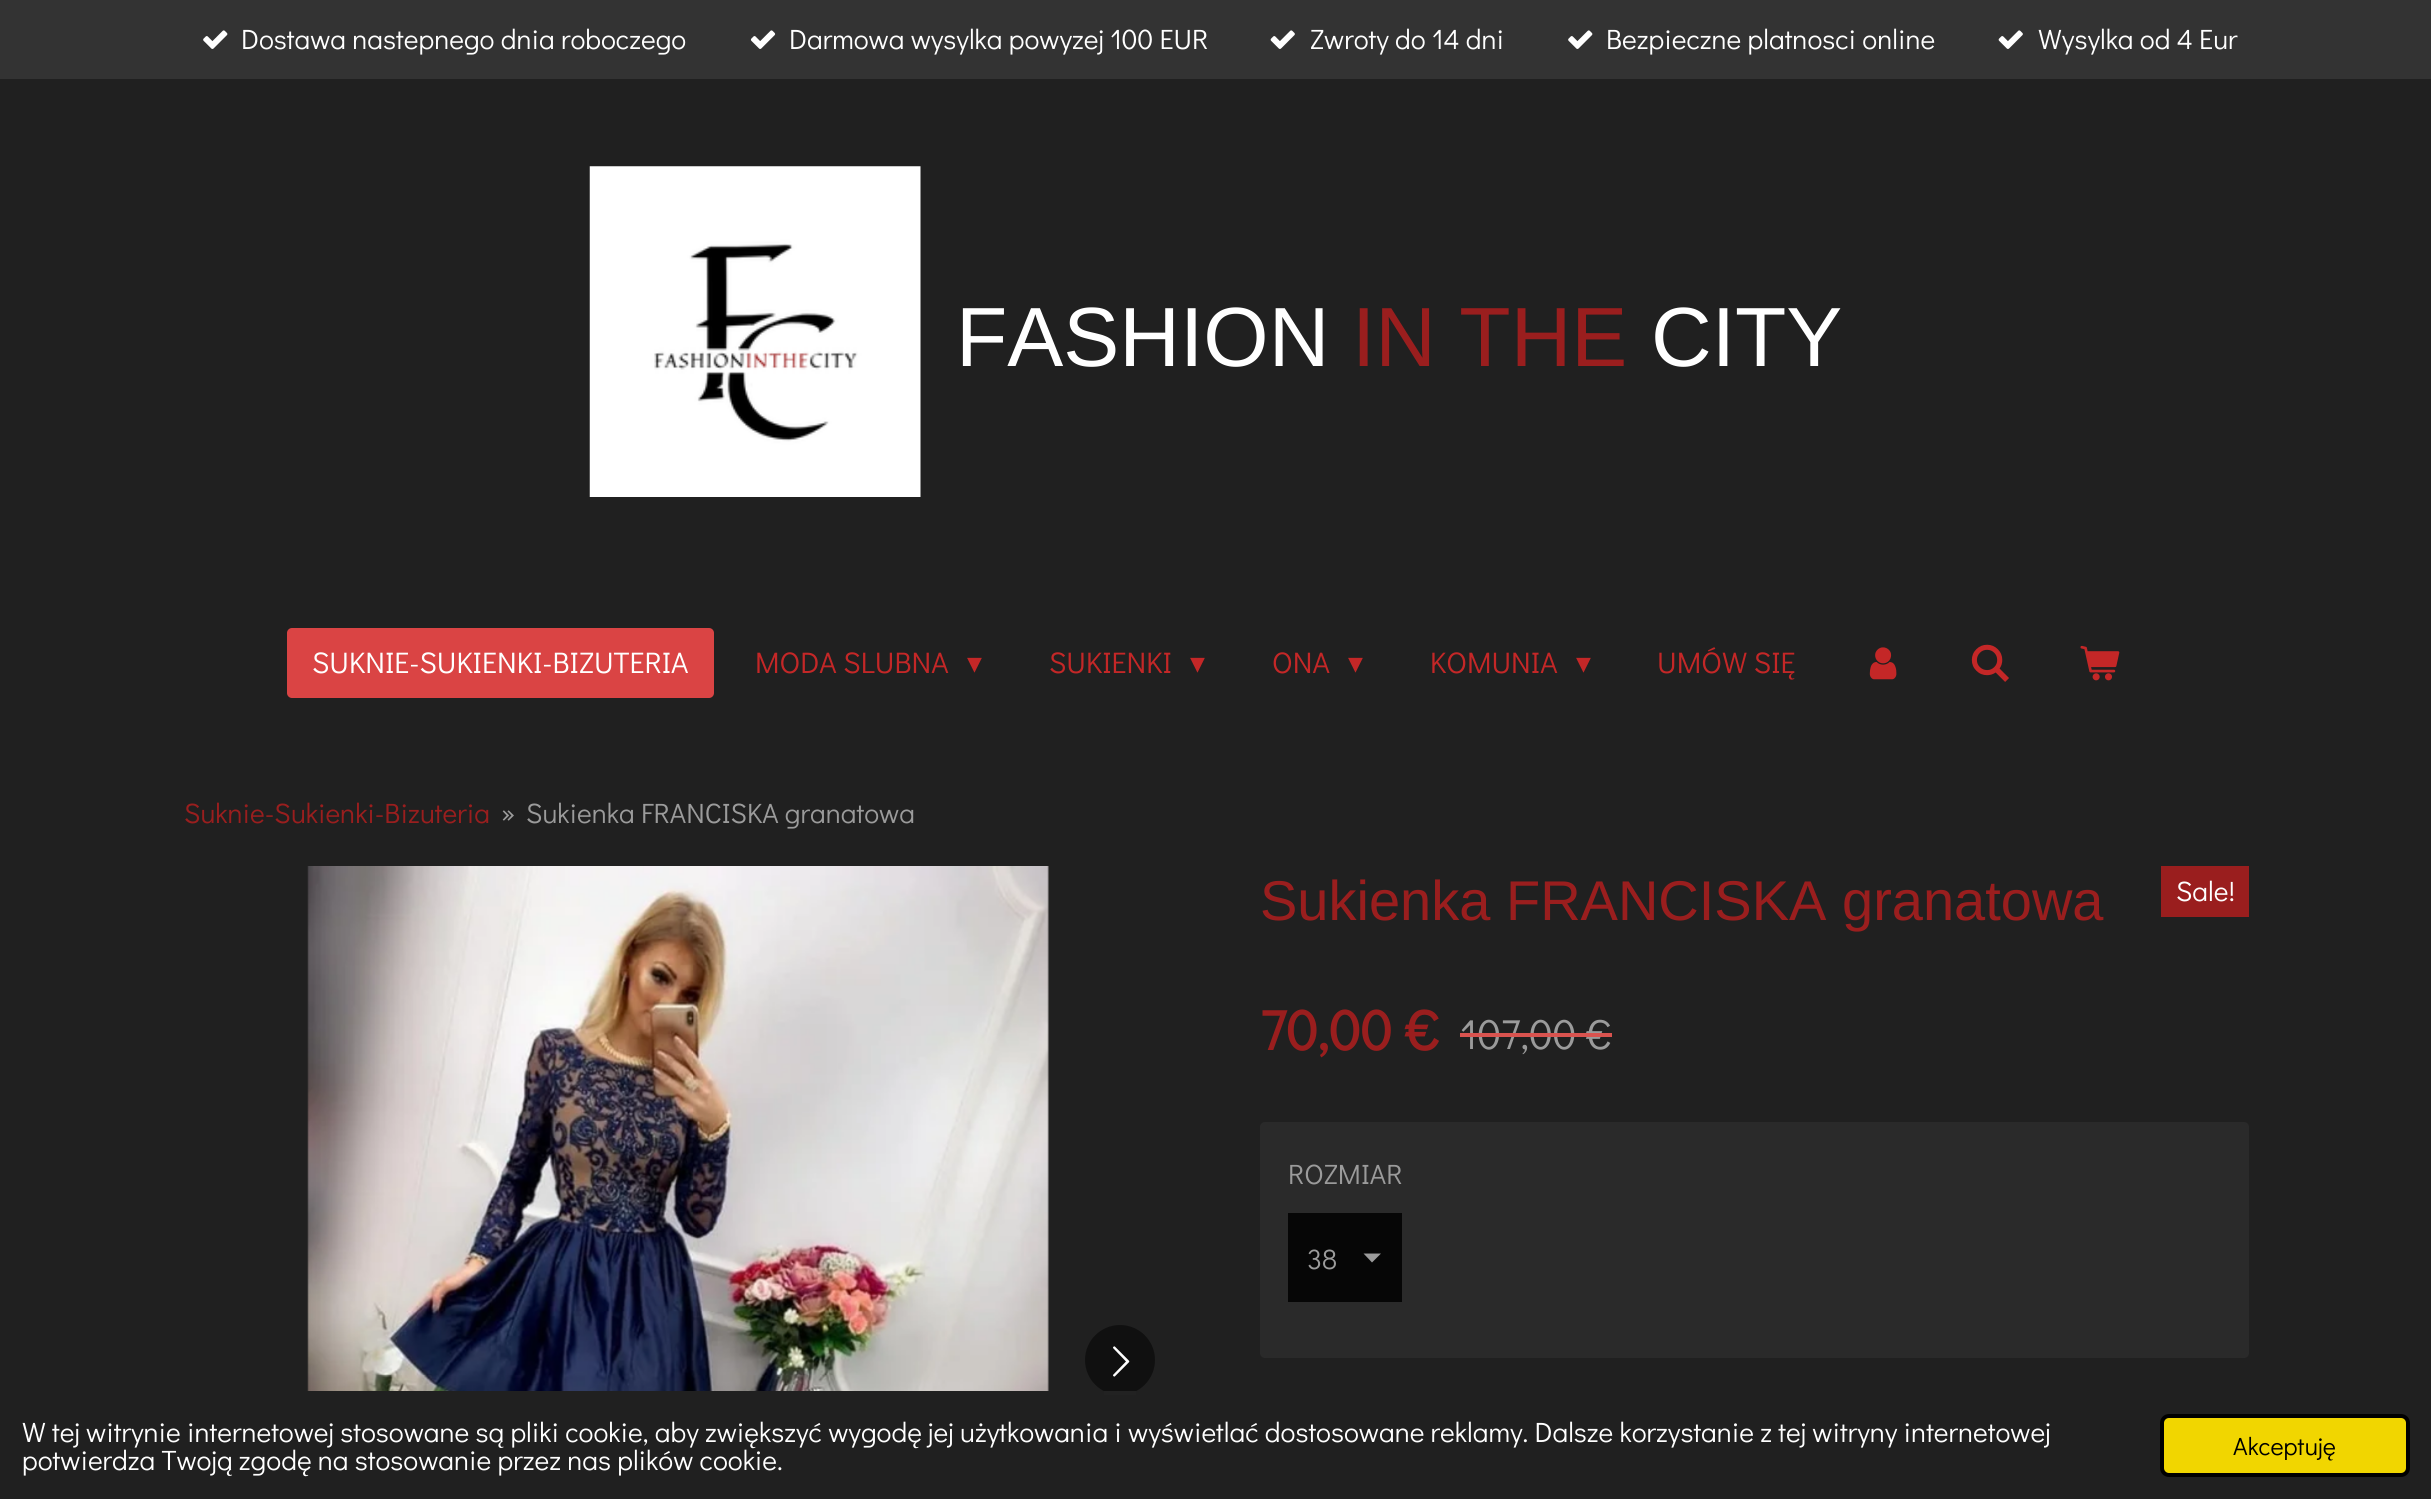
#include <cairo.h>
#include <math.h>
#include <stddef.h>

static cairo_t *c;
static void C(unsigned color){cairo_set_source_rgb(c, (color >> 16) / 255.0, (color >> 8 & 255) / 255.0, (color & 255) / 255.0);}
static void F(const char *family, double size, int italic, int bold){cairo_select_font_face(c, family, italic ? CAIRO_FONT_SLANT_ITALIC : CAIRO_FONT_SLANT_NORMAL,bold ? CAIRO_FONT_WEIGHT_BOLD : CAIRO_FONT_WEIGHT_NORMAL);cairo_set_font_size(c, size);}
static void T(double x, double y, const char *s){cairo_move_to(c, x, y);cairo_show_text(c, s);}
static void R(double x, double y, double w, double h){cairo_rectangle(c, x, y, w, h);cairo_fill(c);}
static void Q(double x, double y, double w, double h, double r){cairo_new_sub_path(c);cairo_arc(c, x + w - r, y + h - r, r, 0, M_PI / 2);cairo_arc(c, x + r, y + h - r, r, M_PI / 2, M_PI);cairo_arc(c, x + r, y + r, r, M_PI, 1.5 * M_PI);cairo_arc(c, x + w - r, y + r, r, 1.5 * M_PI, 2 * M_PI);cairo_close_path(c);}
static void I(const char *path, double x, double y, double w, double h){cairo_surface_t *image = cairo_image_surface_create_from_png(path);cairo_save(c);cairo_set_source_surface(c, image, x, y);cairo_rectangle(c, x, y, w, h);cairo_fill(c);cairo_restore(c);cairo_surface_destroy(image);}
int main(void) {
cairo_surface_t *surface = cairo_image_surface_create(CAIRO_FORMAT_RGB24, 2431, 1499);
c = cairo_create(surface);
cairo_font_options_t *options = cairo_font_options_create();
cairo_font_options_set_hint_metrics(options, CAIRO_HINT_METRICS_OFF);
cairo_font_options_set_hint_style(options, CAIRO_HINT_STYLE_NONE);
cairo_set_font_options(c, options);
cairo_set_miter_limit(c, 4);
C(0x202020);
cairo_paint(c);
C(0x333333);
R(0,0,2431,79);
I("1.png",203,30,25,19);
F("Didact Gothic",28,0,0);
C(0xffffff);
T(241,49,"Dostawa nastepnego dnia roboczego");
I("2.png",750,30,26,19);
T(789,49,"Darmowa wysylka powyzej 100 EUR");
I("3.png",1270,30,25,19);
T(1310,49,"Zwroty do 14 dni");
I("1.png",1568,30,25,19);
T(1606,49,"Bezpieczne platnosci online");
I("3.png",1998,30,25,19);
T(2038,49,"Wysylka od 4 Eur");
I("4.png",589,166,332,331);
F("Arimo",84,0,0);
T(956,366,"FASHION");
C(0x9a1e1e);
T(1352,366,"IN THE");
C(0xffffff);
T(1651,366,"CITY");
C(0xda4444);
Q(287,628,427,70,5);
cairo_fill(c);
F("Didact Gothic",29.75,0,0);
C(0xffffff);
T(312,673,"SUKNIE-SUKIENKI-BIZUTERIA");
C(0xc42727);
T(755,673,"MODA SLUBNA");
F("DejaVu Sans",29.75,0,0);
T(967,673,"▾");
F("Didact Gothic",29.75,0,0);
T(1049,673,"SUKIENKI");
F("DejaVu Sans",29.75,0,0);
T(1190,673,"▾");
F("Didact Gothic",29.75,0,0);
T(1272,673,"ONA");
F("DejaVu Sans",29.75,0,0);
T(1348,673,"▾");
F("Didact Gothic",29.75,0,0);
T(1430,673,"KOMUNIA");
F("DejaVu Sans",29.75,0,0);
T(1576,673,"▾");
F("Didact Gothic",29.75,0,0);
T(1657,673,"UMÓW SIĘ");
I("5.png",1869,647,28,33);
I("6.png",1971,644,38,38);
I("7.png",2080,645,40,36);
F("Didact Gothic",28,0,0);
C(0x9a1e1e);
T(184,823,"Suknie-Sukienki-Bizuteria");
C(0x9b9b9b);
T(501,823,"»");
T(526,823,"Sukienka FRANCISKA granatowa");
I("8.png",307,866,742,525);
C(0x101010);
cairo_arc(c,1120,1360,35,0,2 * M_PI);
cairo_fill(c);
I("9.png",1113,1346,17,31);
F("Arimo",56,0,0);
C(0x9a1e1e);
T(1260,920,"Sukienka FRANCISKA granatowa");
R(2161,866,88,51);
F("Didact Gothic",28,0,0);
C(0xffffff);
T(2176,901,"Sale!");
F("Didact Gothic",56,0,1);
C(0x9a1e1e);
T(1260,1050,"70,00 €");
F("Didact Gothic",42,0,0);
C(0x9b9b9b);
T(1460,1049,"107,00 €");
C(0xd9534f);
R(1460,1033,152,4);
C(0x2a2a2a);
Q(1260,1122,989,236,5);
cairo_fill(c);
F("Didact Gothic",28,0,0);
C(0x9b9b9b);
T(1288,1184,"ROZMIAR");
C(0x060606);
R(1288,1213,114,89);
C(0x9b9b9b);
cairo_new_path(c);
cairo_move_to(c,1372,1262.5);
cairo_line_to(c,1363.5,1253.5);
cairo_line_to(c,1381,1253.5);
cairo_close_path(c);
cairo_fill(c);
T(1307,1269,"38");
C(0x222222);
R(1104,1391,32,4);
C(0xffffff);
T(22,1442,"W tej witrynie internetowej stosowane są pliki cookie, aby zwiększyć wygodę jej użytkowania i wyświetlać dostosowane reklamy. Dalsze korzystanie z tej witryny internetowej");
T(22,1470,"potwierdza Twoją zgodę na stosowanie przez nas plików cookie.");
C(0xf1d600);
Q(2162,1416,246,59,7);
cairo_fill_preserve(c);
C(0x000000);
cairo_set_line_width(c,4);
cairo_stroke(c);
F("Didact Gothic",25,0,0);
T(2233,1455,"Akceptuję");
cairo_surface_write_to_png(surface, "o.png");
cairo_font_options_destroy(options);
cairo_destroy(c);
cairo_surface_destroy(surface);
return 0;
}
